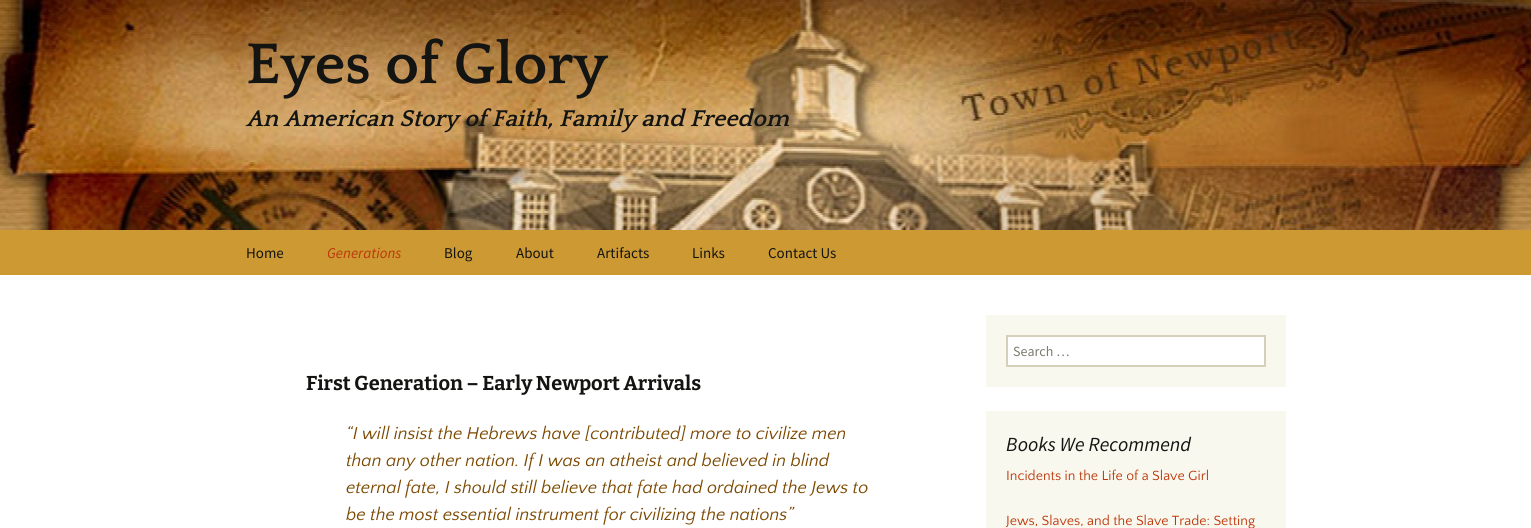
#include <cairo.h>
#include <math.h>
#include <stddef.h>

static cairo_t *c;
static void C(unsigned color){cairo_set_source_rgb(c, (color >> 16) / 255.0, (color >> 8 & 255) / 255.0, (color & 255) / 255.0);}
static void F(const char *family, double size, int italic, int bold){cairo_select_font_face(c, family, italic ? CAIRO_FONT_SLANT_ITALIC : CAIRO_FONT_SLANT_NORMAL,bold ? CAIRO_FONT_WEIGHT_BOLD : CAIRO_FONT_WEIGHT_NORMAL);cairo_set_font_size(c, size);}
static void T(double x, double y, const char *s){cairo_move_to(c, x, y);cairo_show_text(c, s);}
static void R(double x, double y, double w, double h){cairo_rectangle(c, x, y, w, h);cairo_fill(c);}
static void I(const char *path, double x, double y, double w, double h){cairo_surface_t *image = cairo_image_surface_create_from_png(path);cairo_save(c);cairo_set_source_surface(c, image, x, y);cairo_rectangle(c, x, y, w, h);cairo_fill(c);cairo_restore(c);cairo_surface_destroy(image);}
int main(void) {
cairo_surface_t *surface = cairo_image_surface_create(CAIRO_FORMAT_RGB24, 1531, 528);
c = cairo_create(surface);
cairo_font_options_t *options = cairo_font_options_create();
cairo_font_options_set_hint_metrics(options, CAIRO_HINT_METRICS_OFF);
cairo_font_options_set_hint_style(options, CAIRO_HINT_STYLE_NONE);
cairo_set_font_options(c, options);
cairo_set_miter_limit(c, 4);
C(0xffffff);
cairo_paint(c);
I("1.png",0,0,1531,230);
F("Quattrocento",60,0,1);
C(0x141412);
T(246,83,"Eyes of Glory");
F("Quattrocento",24,1,1);
T(246,126,"An American Story of Faith, Family and Freedom");
C(0xcc9933);
R(0,230,1531,45);
F("Source Sans Pro",15,0,0);
C(0x141412);
T(246,258,"Home");
F("Source Sans Pro",15,1,0);
C(0xbc360a);
T(327,258,"Generations");
F("Source Sans Pro",15,0,0);
C(0x141412);
T(444,258,"Blog");
T(516,258,"About");
T(597,258,"Artifacts");
T(692,258,"Links");
T(768,258,"Contact Us");
F("Bitter",20,0,1);
T(306,390,"First Generation – Early Newport Arrivals");
F("Quattrocento Sans",18,1,0);
C(0x7b4800);
T(346,439,"“I will insist the Hebrews have [contributed] more to civilize men");
T(346,466,"than any other nation. If I was an atheist and believed in blind");
T(346,493,"eternal fate, I should still believe that fate had ordained the Jews to");
T(346,520,"be the most essential instrument for civilizing the nations”");
C(0xf9f8ee);
R(986,315,300,72);
C(0xffffff);
cairo_rectangle(c,1007,336,258,30);
cairo_fill_preserve(c);
C(0xd4d0ba);
cairo_stroke(c);
F("Source Sans Pro",14,0,0);
C(0x7d7b6d);
T(1013,356,"Search …");
C(0xf9f8ee);
R(986,411,300,117);
F("Source Sans Pro",20,1,0);
C(0x141412);
T(1006,451,"Books We Recommend");
F("Quattrocento Sans",14,0,0);
C(0xbc360a);
T(1006,480,"Incidents in the Life of a Slave Girl");
T(1006,525,"Jews, Slaves, and the Slave Trade: Setting");
cairo_surface_write_to_png(surface, "o.png");
cairo_font_options_destroy(options);
cairo_destroy(c);
cairo_surface_destroy(surface);
return 0;
}
